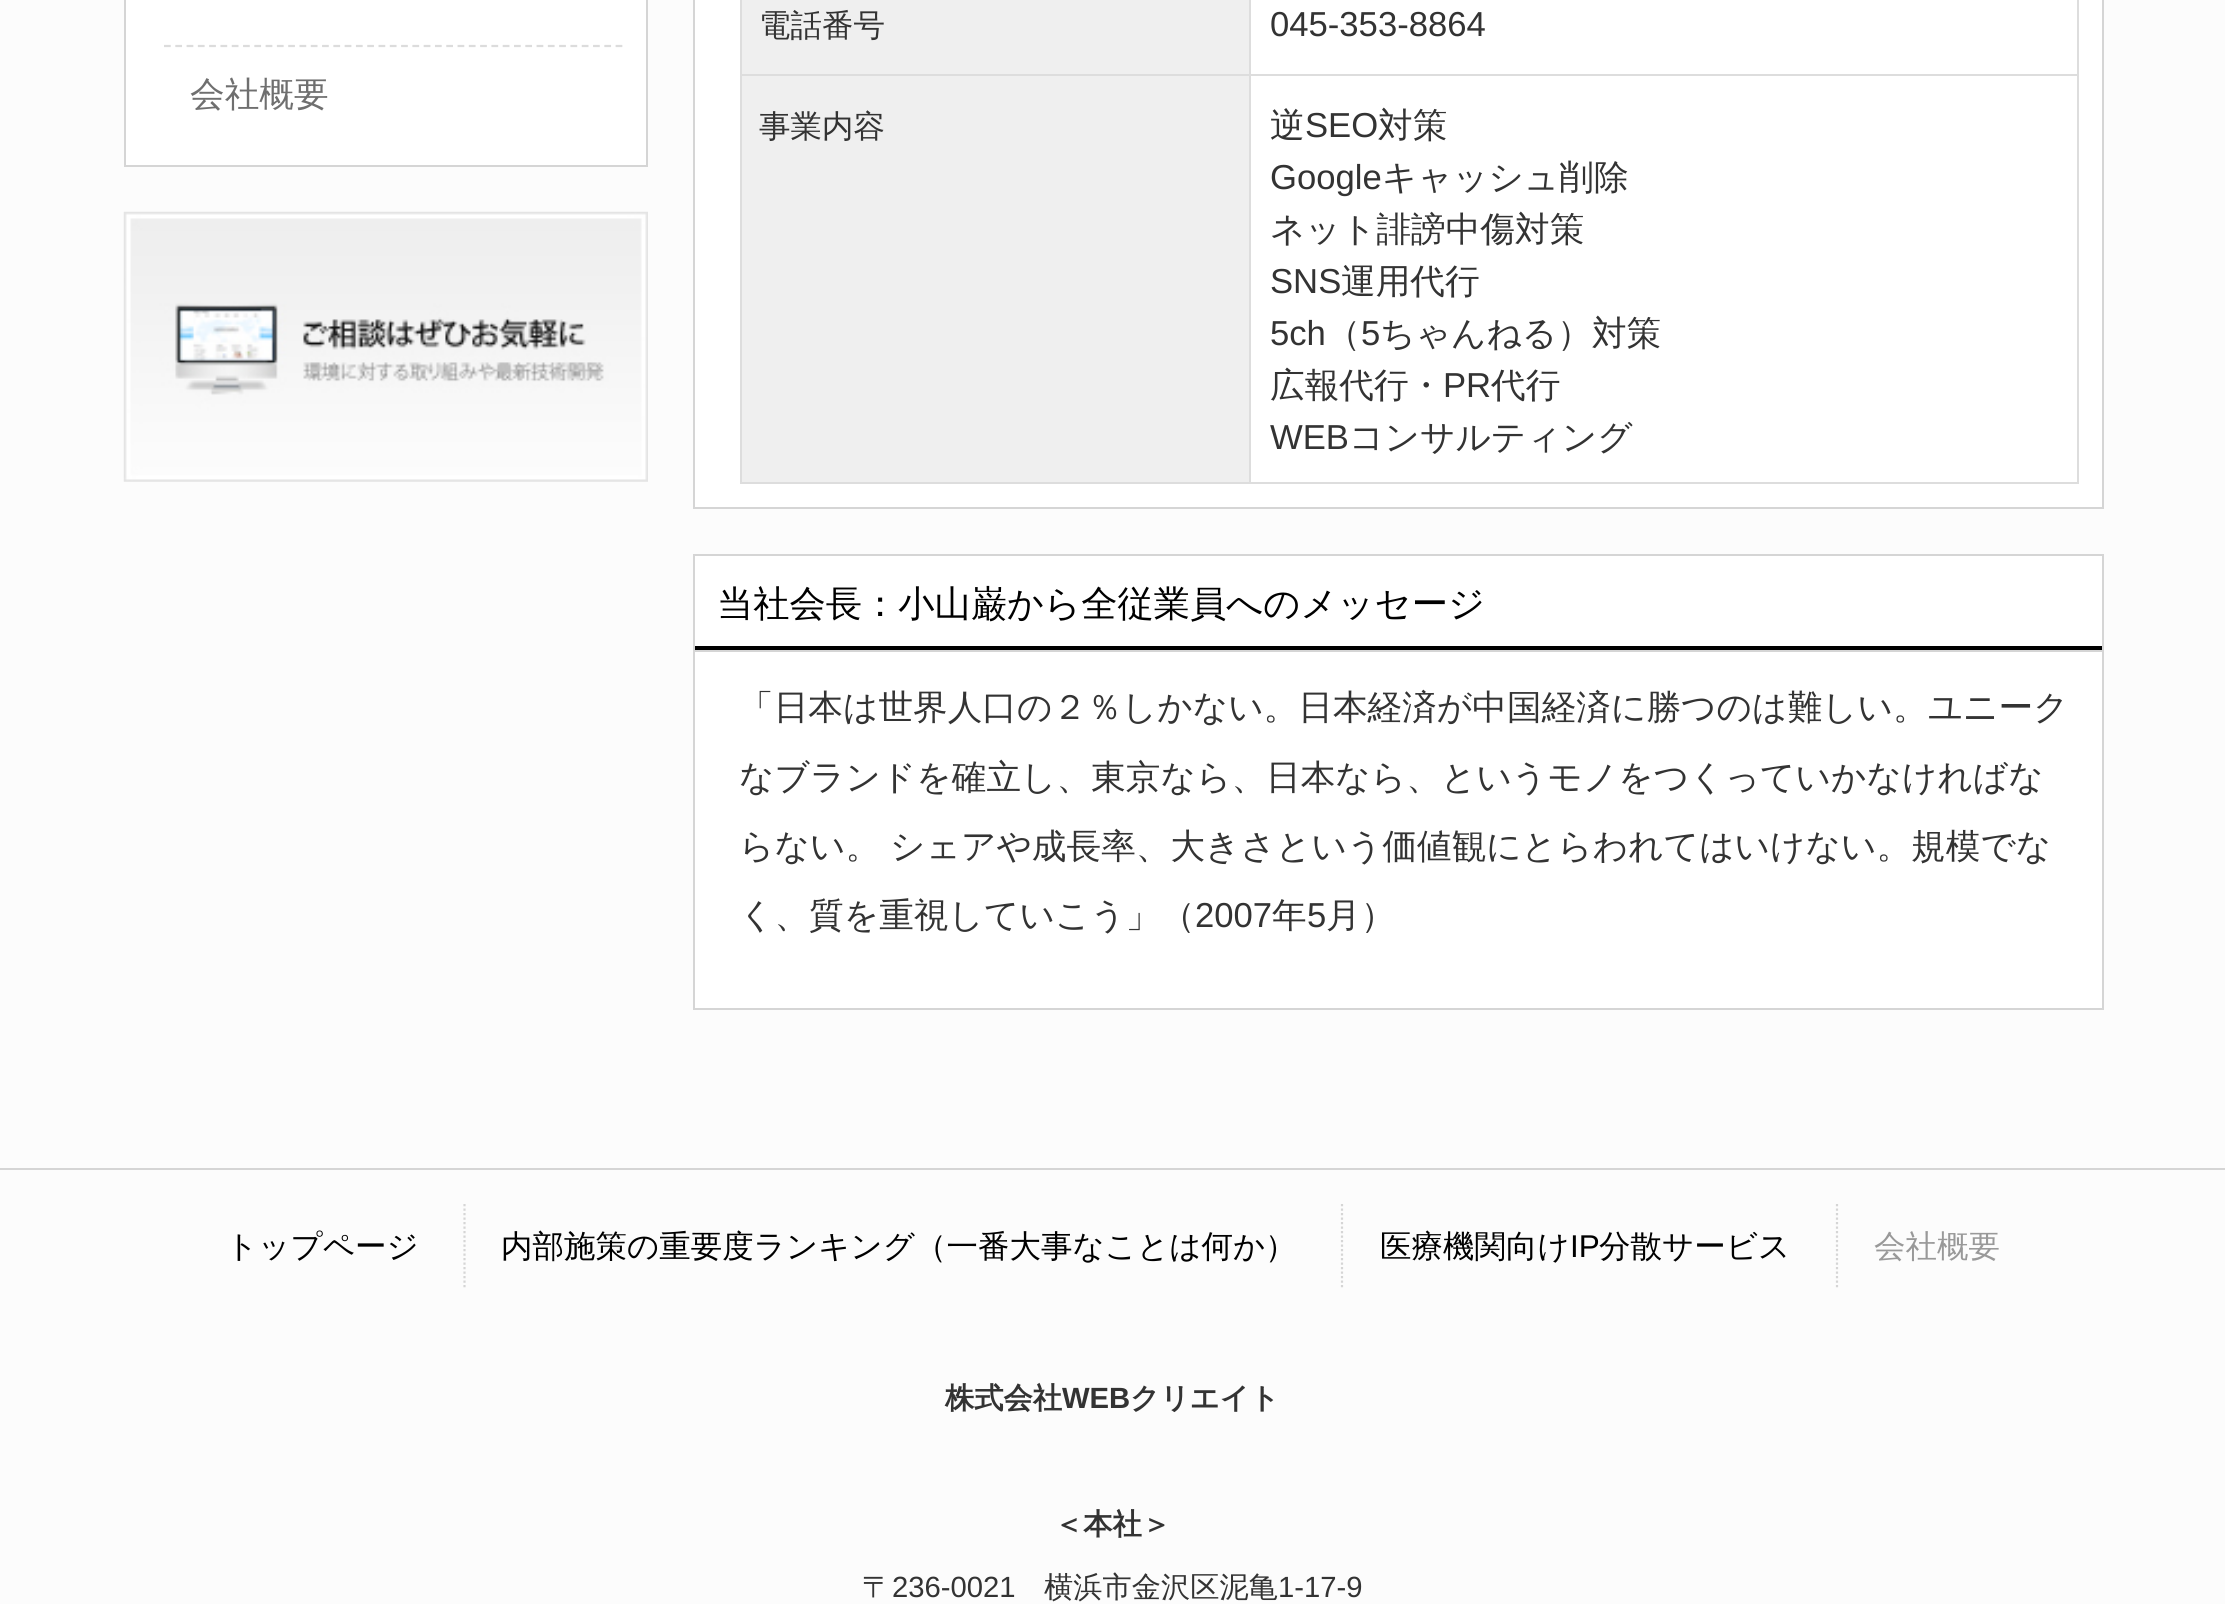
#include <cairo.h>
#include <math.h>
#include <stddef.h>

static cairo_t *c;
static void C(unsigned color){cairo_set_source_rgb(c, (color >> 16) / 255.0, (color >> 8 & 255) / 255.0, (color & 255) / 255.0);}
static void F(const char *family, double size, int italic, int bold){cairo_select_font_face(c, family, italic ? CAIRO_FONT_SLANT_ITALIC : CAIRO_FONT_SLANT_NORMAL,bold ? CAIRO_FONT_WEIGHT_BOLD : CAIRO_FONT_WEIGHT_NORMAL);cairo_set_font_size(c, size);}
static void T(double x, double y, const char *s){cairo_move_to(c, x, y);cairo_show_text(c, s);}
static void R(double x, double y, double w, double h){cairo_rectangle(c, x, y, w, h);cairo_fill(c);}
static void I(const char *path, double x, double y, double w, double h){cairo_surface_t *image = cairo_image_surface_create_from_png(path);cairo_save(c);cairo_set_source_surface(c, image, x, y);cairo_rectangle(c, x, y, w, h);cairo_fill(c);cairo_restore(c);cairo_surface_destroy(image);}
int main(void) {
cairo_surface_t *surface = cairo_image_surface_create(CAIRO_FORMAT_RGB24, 2225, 1604);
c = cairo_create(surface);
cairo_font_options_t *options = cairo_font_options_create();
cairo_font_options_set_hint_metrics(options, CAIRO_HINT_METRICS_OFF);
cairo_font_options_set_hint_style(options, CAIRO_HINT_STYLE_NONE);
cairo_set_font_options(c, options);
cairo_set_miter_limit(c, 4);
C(0xfcfcfc);
cairo_paint(c);
C(0xffffff);
cairo_rectangle(c,125,-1,522,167);
cairo_fill_preserve(c);
C(0xd5d5d5);
cairo_stroke(c);
cairo_new_path(c);
cairo_move_to(c,164,46);
cairo_line_to(c,623,46);
C(0xdcdcdc);
cairo_set_line_width(c,2.2);
cairo_set_dash(c,(double[]){6.75,4.54},2,0);
cairo_stroke(c);
F("WenQuanYi Zen Hei Medium",34.65,0,0);
C(0x6f6f6f);
T(190,106,"会社概要");
I("1.png",123,211,525,271);
C(0xffffff);
cairo_rectangle(c,694,-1,1409,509);
cairo_fill_preserve(c);
C(0xd5d5d5);
cairo_set_line_width(c,2);
cairo_set_dash(c,NULL,0,0);
cairo_stroke(c);
C(0xefefef);
R(742,0,507,482);
F("WenQuanYi Zen Hei Medium",31.5,0,0);
C(0x333333);
T(759,36,"電話番号");
C(0xdddddd);
R(1249,74,830,2);
R(2077,0,2,484);
R(1249,482,830,2);
R(1249,74,2,410);
R(740,74,511,2);
R(1249,0,2,77);
F("Liberation Sans",34.65,0,0);
C(0x333333);
T(1270,36,"045-353-8864");
C(0xdddddd);
R(740,482,511,2);
R(740,0,2,484);
F("WenQuanYi Zen Hei Medium",31.5,0,0);
C(0x333333);
T(759,137,"事業内容");
F("WenQuanYi Zen Hei Medium",34.65,0,0);
T(1270,137,"逆");
F("Liberation Sans",34.65,0,0);
T(1305,137,"SEO");
F("WenQuanYi Zen Hei Medium",34.65,0,0);
T(1378,137,"対策");
F("Liberation Sans",34.65,0,0);
T(1270,189,"Google");
F("WenQuanYi Zen Hei Medium",34.65,0,0);
T(1382,189,"キャッシュ削除");
T(1270,241,"ネット誹謗中傷対策");
F("Liberation Sans",34.65,0,0);
T(1270,293,"SNS");
F("WenQuanYi Zen Hei Medium",34.65,0,0);
T(1341,293,"運用代行");
F("Liberation Sans",34.65,0,0);
T(1270,345,"5ch");
F("WenQuanYi Zen Hei Medium",34.65,0,0);
T(1326,345,"（");
F("Liberation Sans",34.65,0,0);
T(1361,345,"5");
F("WenQuanYi Zen Hei Medium",34.65,0,0);
T(1380,345,"ちゃんねる）対策");
T(1270,397,"広報代行・");
F("Liberation Sans",34.65,0,0);
T(1443,397,"PR");
F("WenQuanYi Zen Hei Medium",34.65,0,0);
T(1491,397,"代行");
F("Liberation Sans",34.65,0,0);
T(1270,449,"WEB");
F("WenQuanYi Zen Hei Medium",34.65,0,0);
T(1349,449,"コンサルティング");
C(0xffffff);
R(695,556,1407,90);
C(0x000000);
R(693,646,1411,4);
C(0xd5d5d5);
R(693,554,1411,2);
R(2102,554,2,96);
R(693,554,2,96);
F("WenQuanYi Zen Hei Medium",36.25,0,0);
C(0x000000);
T(717,616,"当社会長：小山巌から全従業員へのメッセージ");
C(0xffffff);
cairo_rectangle(c,694,651,1409,358);
cairo_fill_preserve(c);
C(0xd5d5d5);
cairo_stroke(c);
F("WenQuanYi Zen Hei Medium",34.65,0,0);
C(0x333333);
T(739,719,"「日本は世界人口の２％しかない。日本経済が中国経済に勝つのは難しい。ユニーク");
T(739,789,"なブランドを確立し、東京なら、日本なら、というモノをつくっていかなければな");
T(739,858,"らない。");
T(890,858,"シェアや成長率、大きさという価値観にとらわれてはいけない。規模でな");
T(739,927,"く、質を重視していこう」（");
F("Liberation Sans",34.65,0,0);
T(1195,927,"2007");
F("WenQuanYi Zen Hei Medium",34.65,0,0);
T(1272,927,"年");
F("Liberation Sans",34.65,0,0);
T(1307,927,"5");
F("WenQuanYi Zen Hei Medium",34.65,0,0);
T(1326,927,"月）");
C(0xd5d5d5);
R(0,1168,2225,2);
F("WenQuanYi Zen Hei Medium",31.5,0,0);
C(0x000000);
T(226,1257,"トップページ");
cairo_new_path(c);
cairo_move_to(c,464.5,1204);
cairo_line_to(c,464.5,1289);
C(0xd5d5d5);
cairo_set_line_width(c,2.2);
cairo_set_dash(c,(double[]){2.25,2.25},2,0);
cairo_stroke(c);
C(0x000000);
T(501,1257,"内部施策の重要度ランキング（一番大事なことは何か）");
cairo_new_path(c);
cairo_move_to(c,1342,1204);
cairo_line_to(c,1342,1289);
C(0xd5d5d5);
cairo_stroke(c);
C(0x000000);
T(1380,1257,"医療機関向け");
F("Liberation Sans",31.5,0,0);
T(1570,1257,"IP");
F("WenQuanYi Zen Hei Medium",31.5,0,0);
T(1599,1257,"分散サービス");
cairo_new_path(c);
cairo_move_to(c,1837,1204);
cairo_line_to(c,1837,1289);
C(0xd5d5d5);
cairo_stroke(c);
C(0x999999);
T(1874,1257,"会社概要");
F("WenQuanYi Zen Hei",29.25,0,1);
C(0x333333);
T(945,1408,"株式会社");
F("Liberation Sans",29.25,0,1);
T(1062,1408,"WEB");
F("WenQuanYi Zen Hei",29.25,0,1);
T(1130,1408,"クリエイト");
T(1054,1534,"＜本社＞");
F("WenQuanYi Zen Hei Medium",29.25,0,0);
T(862,1597,"〒");
F("Liberation Sans",29.25,0,0);
T(892,1597,"236-0021");
F("WenQuanYi Zen Hei Medium",29.25,0,0);
T(1044,1597,"横浜市金沢区泥亀");
F("Liberation Sans",29.25,0,0);
T(1278,1597,"1-17-9");
cairo_surface_write_to_png(surface, "o.png");
cairo_font_options_destroy(options);
cairo_destroy(c);
cairo_surface_destroy(surface);
return 0;
}
